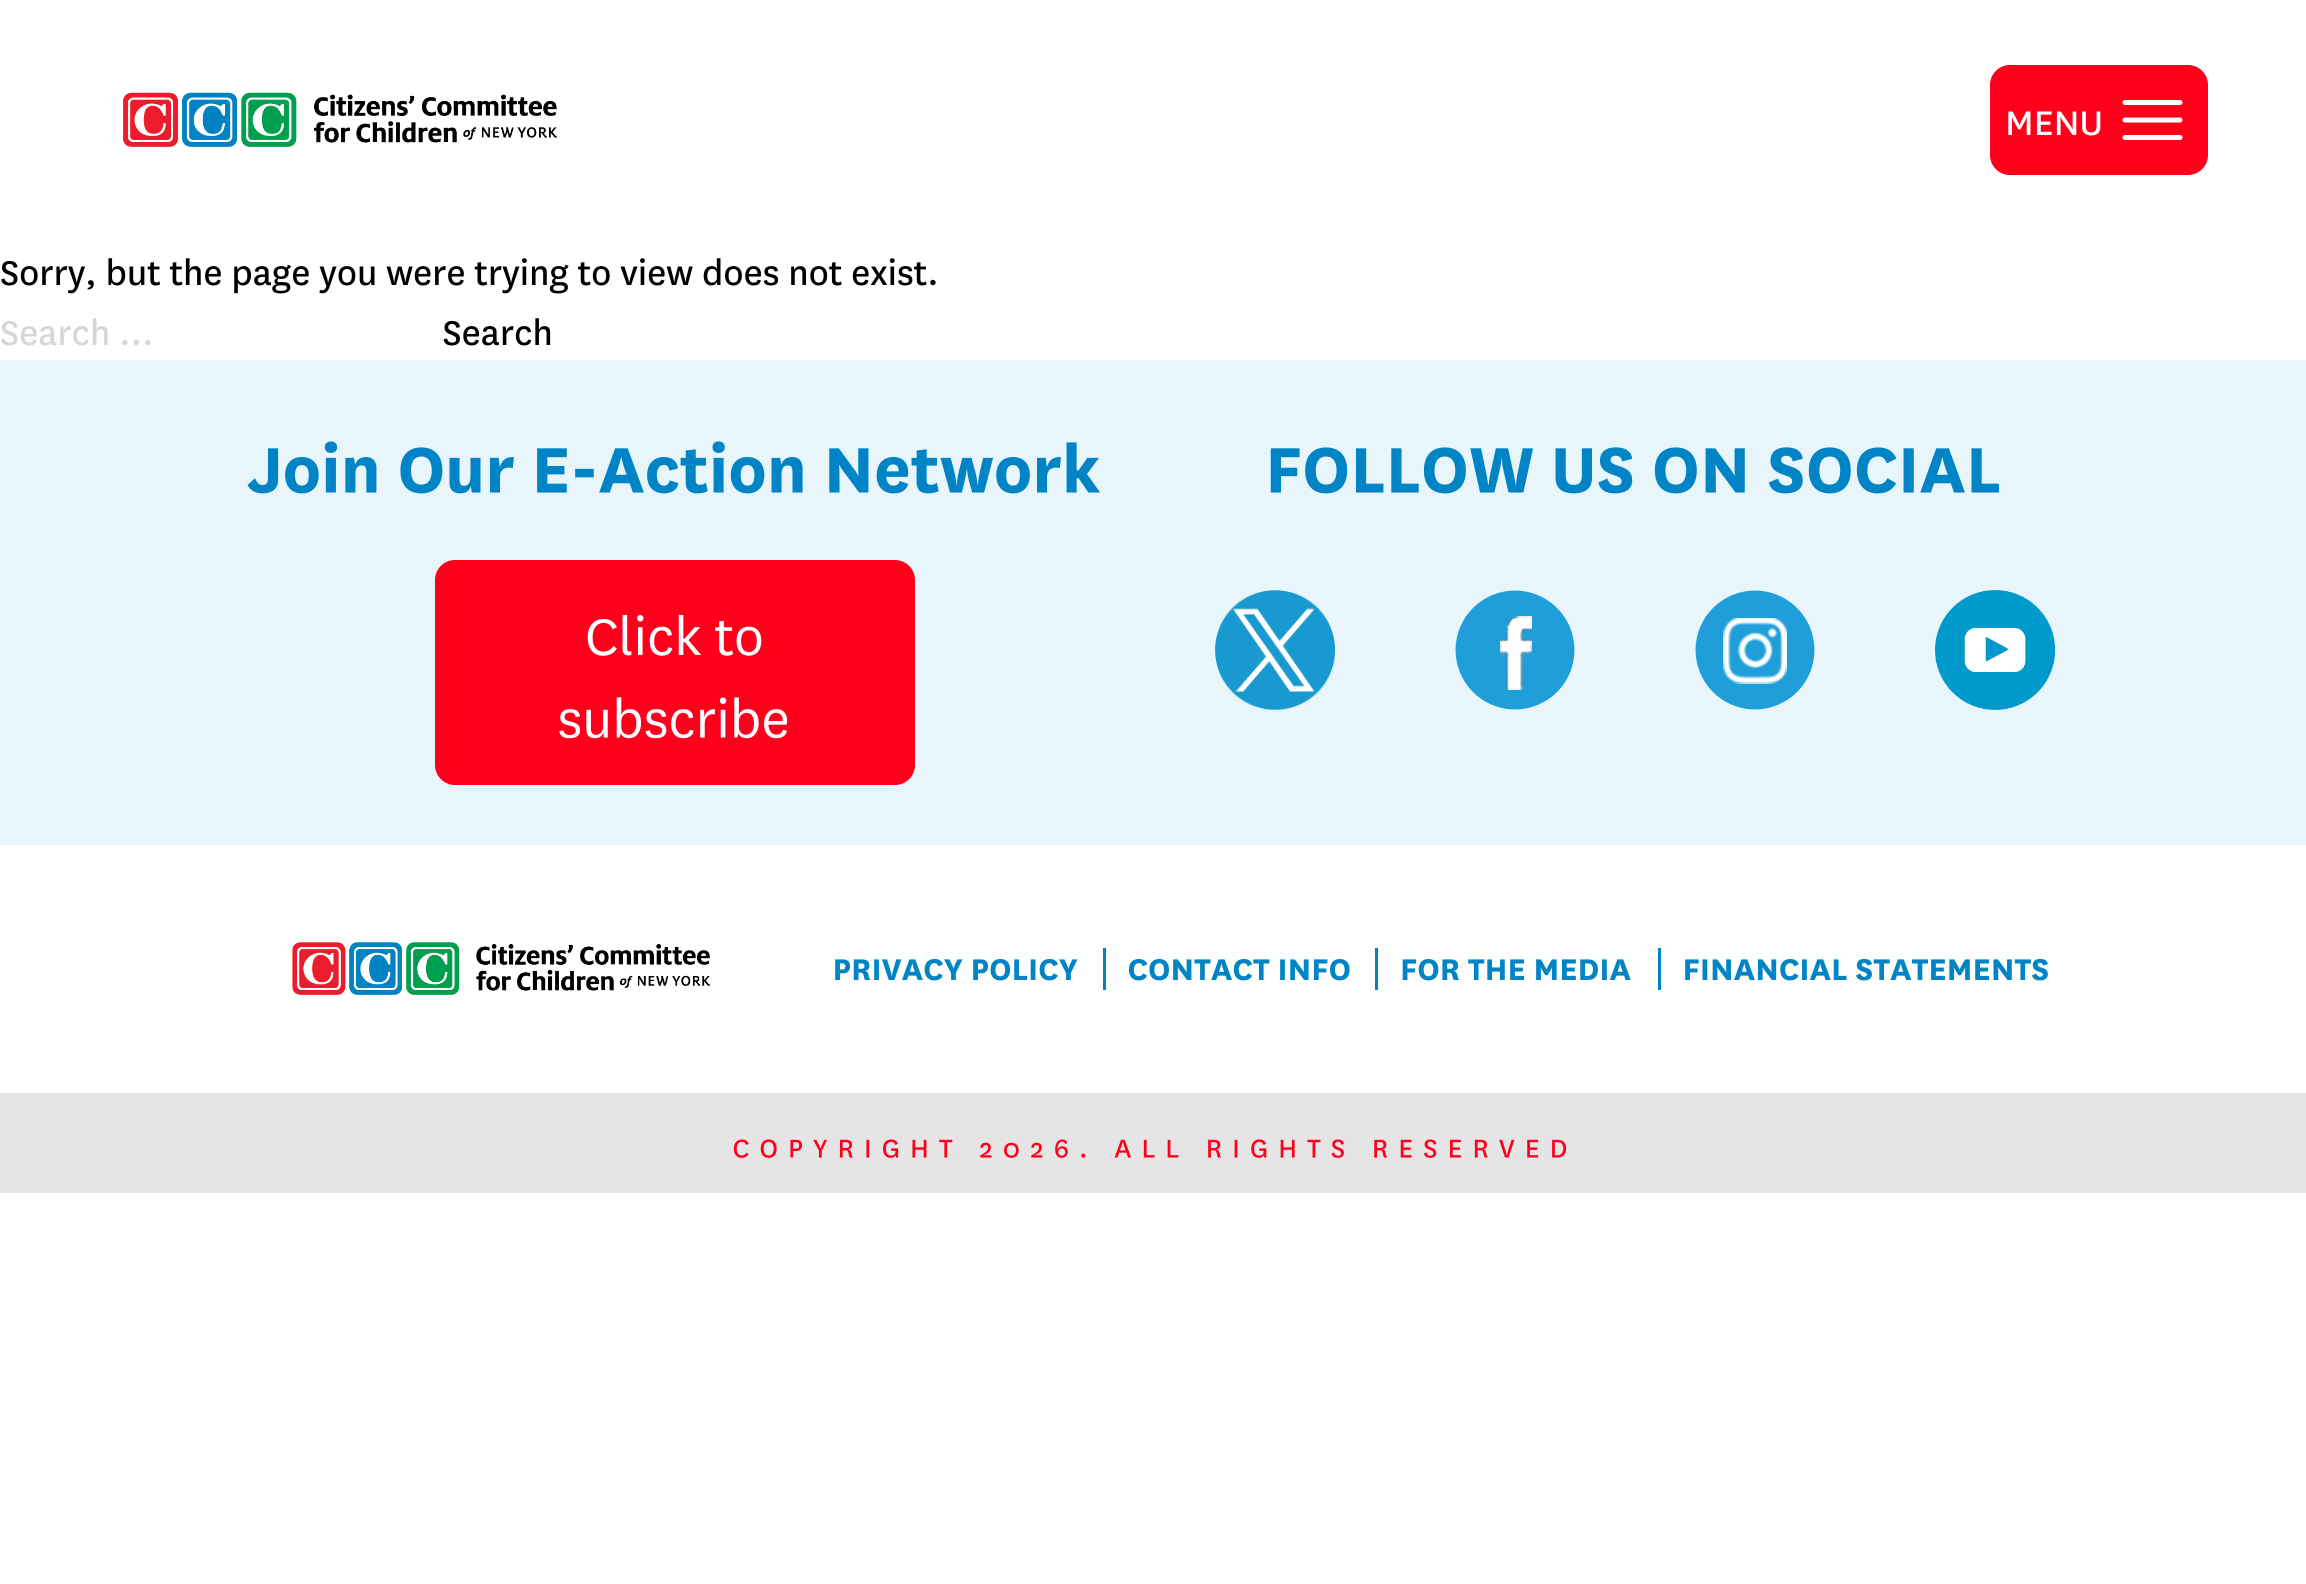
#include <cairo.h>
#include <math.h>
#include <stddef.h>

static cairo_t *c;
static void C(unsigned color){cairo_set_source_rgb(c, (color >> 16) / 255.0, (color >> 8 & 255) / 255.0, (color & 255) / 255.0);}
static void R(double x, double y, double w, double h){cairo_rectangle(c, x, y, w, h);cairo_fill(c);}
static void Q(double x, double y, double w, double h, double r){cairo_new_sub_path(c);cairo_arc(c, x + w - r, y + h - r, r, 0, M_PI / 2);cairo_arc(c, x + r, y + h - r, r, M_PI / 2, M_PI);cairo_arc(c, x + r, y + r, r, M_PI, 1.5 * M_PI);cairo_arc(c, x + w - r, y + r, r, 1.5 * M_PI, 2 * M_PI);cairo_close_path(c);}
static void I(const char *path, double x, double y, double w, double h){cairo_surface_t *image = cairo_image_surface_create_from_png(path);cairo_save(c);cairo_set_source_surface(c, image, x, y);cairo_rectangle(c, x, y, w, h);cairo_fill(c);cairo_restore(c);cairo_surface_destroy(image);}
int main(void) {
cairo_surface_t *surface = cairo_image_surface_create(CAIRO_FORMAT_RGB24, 2306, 1584);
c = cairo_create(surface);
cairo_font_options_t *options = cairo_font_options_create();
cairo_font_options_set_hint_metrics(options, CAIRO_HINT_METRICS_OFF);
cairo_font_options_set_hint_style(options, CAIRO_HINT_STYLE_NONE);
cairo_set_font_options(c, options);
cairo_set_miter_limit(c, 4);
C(0xffffff);
cairo_paint(c);
I("1.png",123,92,434,55);
C(0xff001c);
Q(1990,65,218,110,20);
cairo_fill(c);
I("2.png",2008,111,93,25);
cairo_new_path(c);
cairo_move_to(c,2125,102.5);
cairo_line_to(c,2180,102.5);
cairo_move_to(c,2125,120);
cairo_line_to(c,2180,120);
cairo_move_to(c,2125,137.5);
cairo_line_to(c,2180,137.5);
C(0xffffff);
cairo_set_line_width(c,5);
cairo_set_line_cap(c,CAIRO_LINE_CAP_ROUND);
cairo_set_line_join(c,CAIRO_LINE_JOIN_ROUND);
cairo_stroke(c);
I("3.png",1,258,935,36);
I("4.png",1,318,150,28);
I("5.png",443,318,108,28);
C(0xe8f5fb);
R(0,360,2306,485);
I("6.png",247,441,853,53);
C(0xff001c);
Q(435,560,480,225,20);
cairo_fill(c);
I("7.png",587,614,175,42);
I("8.png",559,697,229,42);
I("9.png",1270,447,729,47);
I("10.png",1215,590,120,120);
I("11.png",1455,590,120,120);
I("12.png",1695,590,120,120);
I("13.png",1935,590,120,120);
I("14.png",292,942,418,53);
I("15.png",835,959,243,22);
C(0x0084c5);
R(1103,948,3,42);
I("16.png",1128,959,222,22);
R(1375,948,3,42);
I("17.png",1402,959,229,22);
R(1658,948,3,42);
I("18.png",1685,958,363,23);
C(0xe5e5e5);
R(0,1093,2306,100);
I("19.png",733,1139,834,19);
cairo_surface_write_to_png(surface, "o.png");
cairo_font_options_destroy(options);
cairo_destroy(c);
cairo_surface_destroy(surface);
return 0;
}
